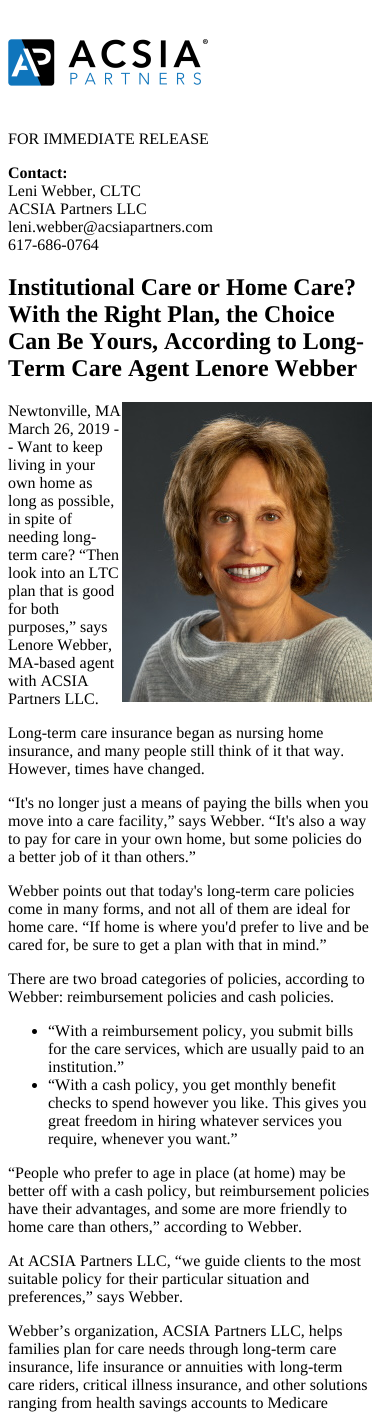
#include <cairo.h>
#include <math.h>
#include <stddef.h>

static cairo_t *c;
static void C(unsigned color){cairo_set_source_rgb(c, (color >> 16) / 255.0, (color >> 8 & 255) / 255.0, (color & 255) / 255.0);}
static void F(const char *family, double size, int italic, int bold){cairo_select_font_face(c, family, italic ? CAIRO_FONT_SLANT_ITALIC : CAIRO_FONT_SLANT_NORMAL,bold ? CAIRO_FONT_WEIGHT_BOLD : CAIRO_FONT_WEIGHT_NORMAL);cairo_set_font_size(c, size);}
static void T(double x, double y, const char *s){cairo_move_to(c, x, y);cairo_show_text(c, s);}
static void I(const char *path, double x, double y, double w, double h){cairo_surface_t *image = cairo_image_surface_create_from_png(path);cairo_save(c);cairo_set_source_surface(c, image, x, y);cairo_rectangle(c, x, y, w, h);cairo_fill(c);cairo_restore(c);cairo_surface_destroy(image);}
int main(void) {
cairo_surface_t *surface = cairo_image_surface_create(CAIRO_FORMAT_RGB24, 380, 1421);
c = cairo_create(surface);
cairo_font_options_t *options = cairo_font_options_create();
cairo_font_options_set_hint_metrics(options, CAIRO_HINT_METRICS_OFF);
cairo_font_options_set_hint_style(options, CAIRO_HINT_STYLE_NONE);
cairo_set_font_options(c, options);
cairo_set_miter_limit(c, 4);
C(0xffffff);
cairo_paint(c);
I("1.png",8,39,200,47);
F("Liberation Serif",16,0,0);
C(0x000000);
T(8,144,"FOR IMMEDIATE RELEASE");
F("Liberation Serif",16,0,1);
T(8,178,"Contact:");
F("Liberation Serif",16,0,0);
T(8,196,"Leni Webber, CLTC");
T(8,214,"ACSIA Partners LLC");
T(8,232,"leni.webber@acsiapartners.com");
T(8,250,"617-686-0764");
F("Liberation Serif",24,0,1);
T(8,295,"Institutional Care or Home Care?");
T(8,322,"With the Right Plan, the Choice");
T(8,349,"Can Be Yours, According to Long-");
T(8,376,"Term Care Agent Lenore Webber");
F("Liberation Serif",16,0,0);
T(8,416,"Newtonville, MA");
I("2.png",122,402,250,300);
T(8,434,"March 26, 2019 -");
T(8,452,"- Want to keep");
T(8,470,"living in your");
T(8,488,"own home as");
T(8,506,"long as possible,");
T(8,524,"in spite of");
T(8,542,"needing long-");
T(8,560,"term care? “Then");
T(8,578,"look into an LTC");
T(8,596,"plan that is good");
T(8,614,"for both");
T(8,632,"purposes,” says");
T(8,650,"Lenore Webber,");
T(8,668,"MA-based agent");
T(8,686,"with ACSIA");
T(8,704,"Partners LLC.");
T(8,738,"Long-term care insurance began as nursing home");
T(8,756,"insurance, and many people still think of it that way.");
T(8,774,"However, times have changed.");
T(8,808,"“It's no longer just a means of paying the bills when you");
T(8,826,"move into a care facility,” says Webber. “It's also a way");
T(8,844,"to pay for care in your own home, but some policies do");
T(8,862,"a better job of it than others.”");
T(8,896,"Webber points out that today's long-term care policies");
T(8,914,"come in many forms, and not all of them are ideal for");
T(8,932,"home care. “If home is where you'd prefer to live and be");
T(8,950,"cared for, be sure to get a plan with that in mind.”");
T(8,984,"There are two broad categories of policies, according to");
T(8,1002,"Webber: reimbursement policies and cash policies.");
cairo_new_path(c);
cairo_arc(c,34.5,1031.5,2.5,0,2 * M_PI);
cairo_fill(c);
T(48,1036,"“With a reimbursement policy, you submit bills");
T(48,1054,"for the care services, which are usually paid to an");
T(48,1072,"institution.”");
cairo_new_path(c);
cairo_arc(c,34.5,1085.5,2.5,0,2 * M_PI);
cairo_fill(c);
T(48,1090,"“With a cash policy, you get monthly benefit");
T(48,1108,"checks to spend however you like. This gives you");
T(48,1126,"great freedom in hiring whatever services you");
T(48,1144,"require, whenever you want.”");
T(8,1178,"“People who prefer to age in place (at home) may be");
T(8,1196,"better off with a cash policy, but reimbursement policies");
T(8,1214,"have their advantages, and some are more friendly to");
T(8,1232,"home care than others,” according to Webber.");
T(8,1266,"At ACSIA Partners LLC, “we guide clients to the most");
T(8,1284,"suitable policy for their particular situation and");
T(8,1302,"preferences,” says Webber.");
T(8,1336,"Webber’s organization, ACSIA Partners LLC, helps");
T(8,1354,"families plan for care needs through long-term care");
T(8,1372,"insurance, life insurance or annuities with long-term");
T(8,1390,"care riders, critical illness insurance, and other solutions");
T(8,1408,"ranging from health savings accounts to Medicare");
cairo_surface_write_to_png(surface, "o.png");
cairo_font_options_destroy(options);
cairo_destroy(c);
cairo_surface_destroy(surface);
return 0;
}
